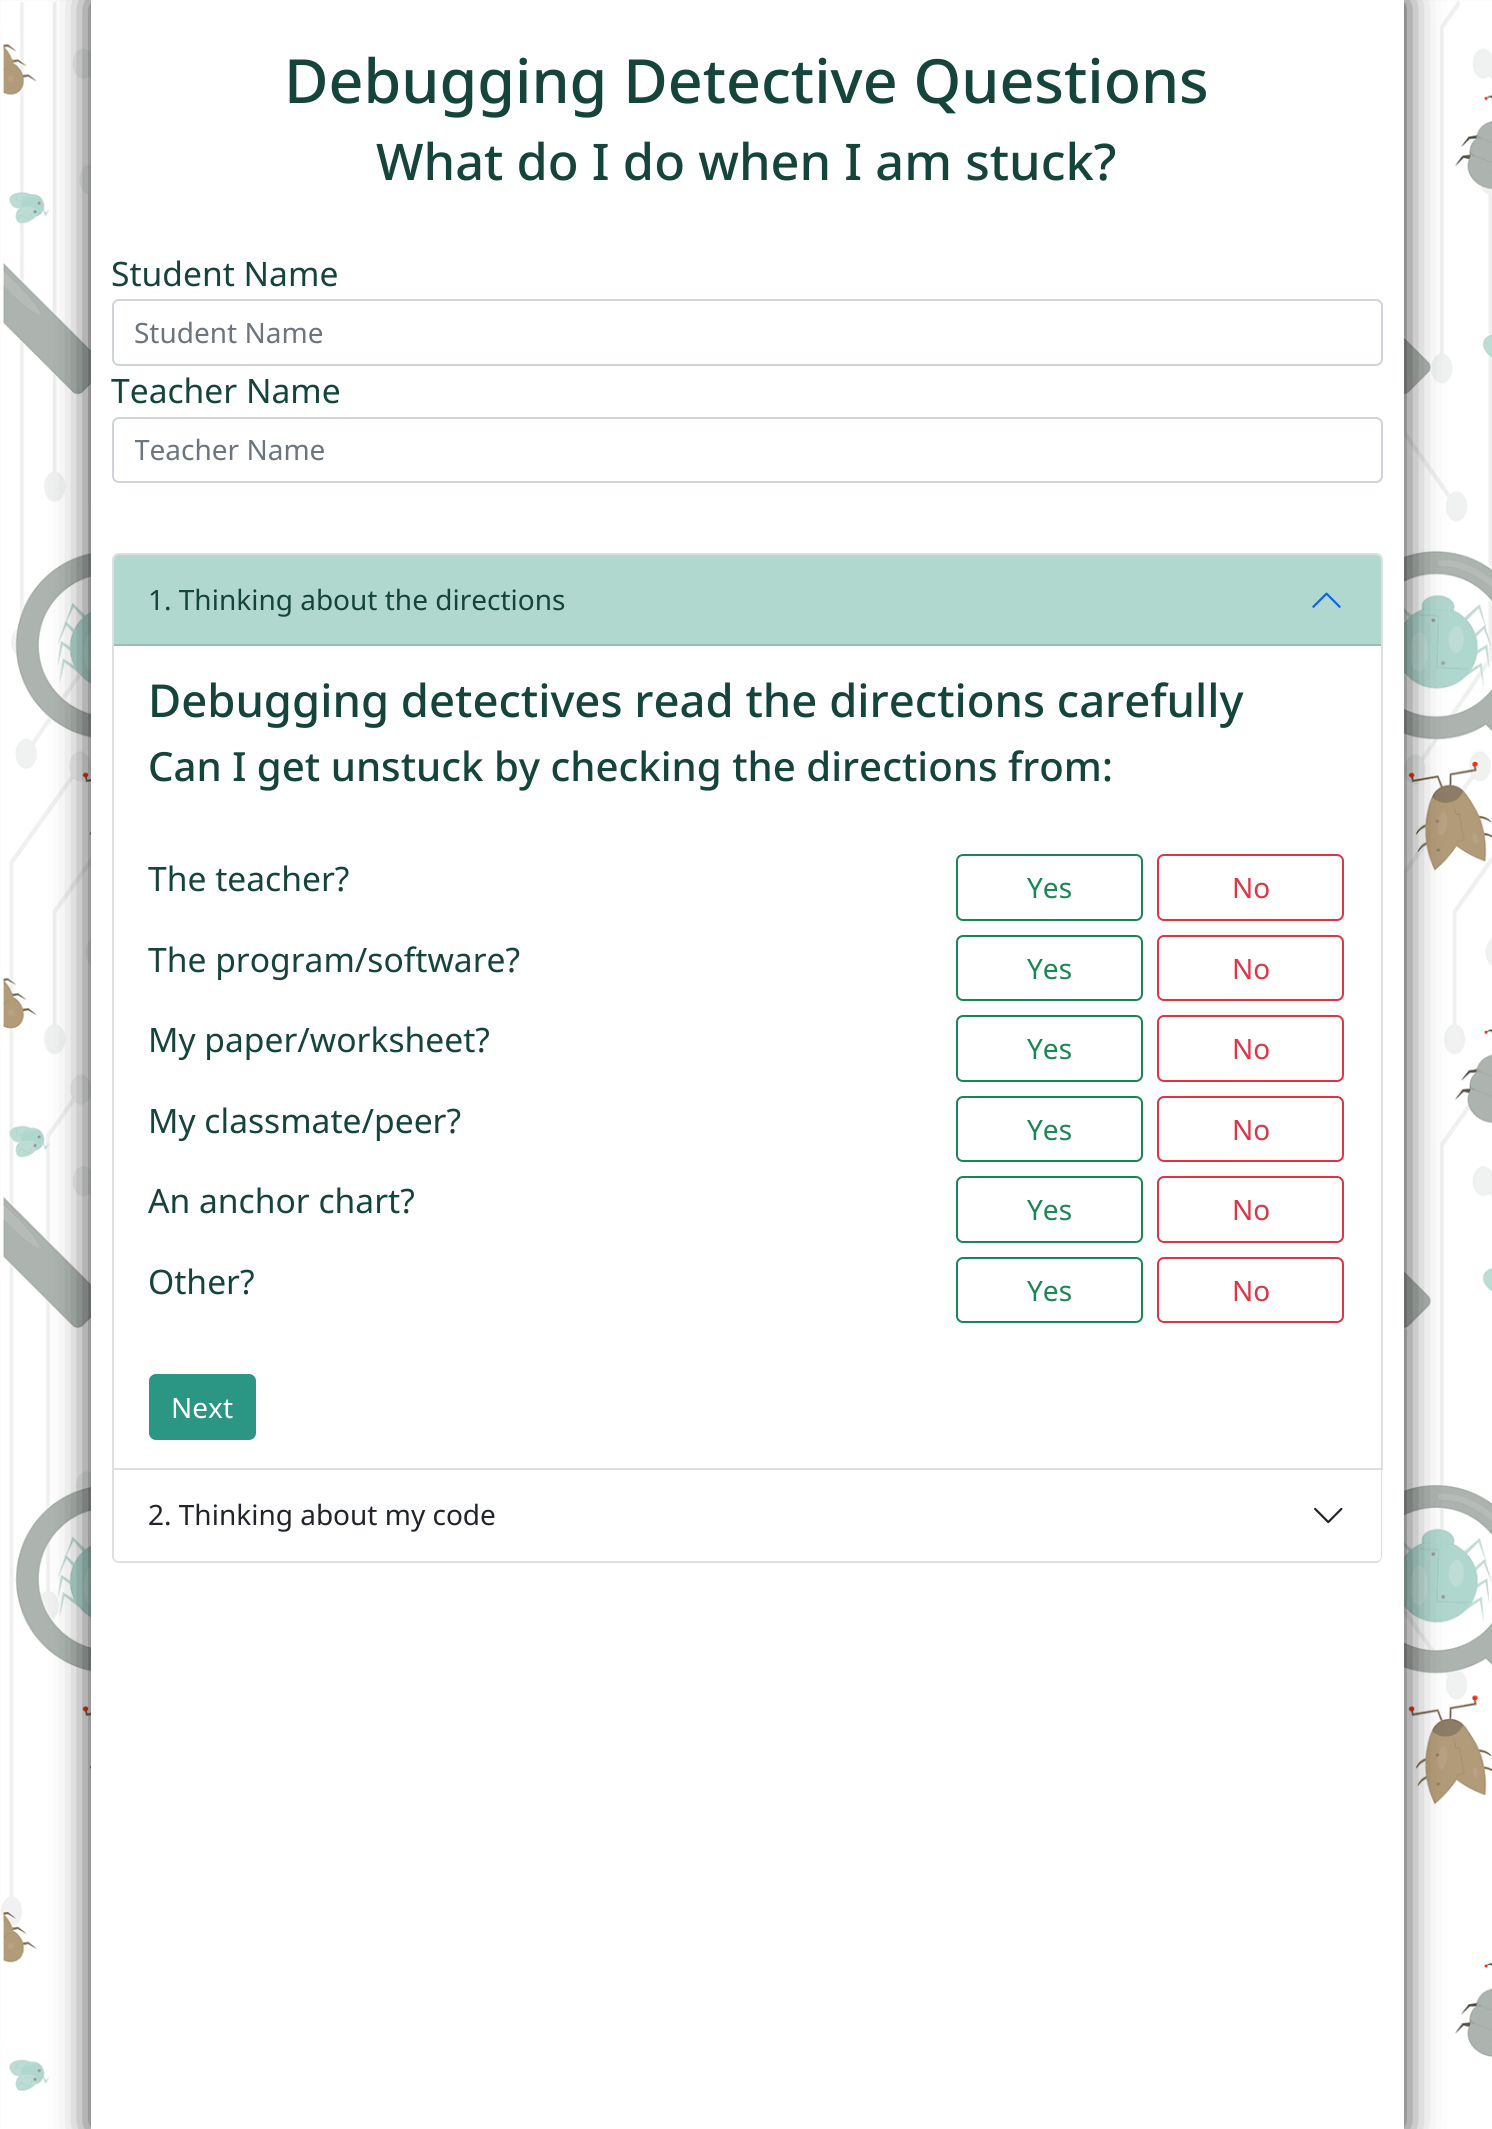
#include <cairo.h>
#include <math.h>
#include <stddef.h>

static cairo_t *c;
static void C(unsigned color){cairo_set_source_rgb(c, (color >> 16) / 255.0, (color >> 8 & 255) / 255.0, (color & 255) / 255.0);}
static void F(const char *family, double size, int italic, int bold){cairo_select_font_face(c, family, italic ? CAIRO_FONT_SLANT_ITALIC : CAIRO_FONT_SLANT_NORMAL,bold ? CAIRO_FONT_WEIGHT_BOLD : CAIRO_FONT_WEIGHT_NORMAL);cairo_set_font_size(c, size);}
static void T(double x, double y, const char *s){cairo_move_to(c, x, y);cairo_show_text(c, s);}
static void R(double x, double y, double w, double h){cairo_rectangle(c, x, y, w, h);cairo_fill(c);}
static void Q(double x, double y, double w, double h, double r){cairo_new_sub_path(c);cairo_arc(c, x + w - r, y + h - r, r, 0, M_PI / 2);cairo_arc(c, x + r, y + h - r, r, M_PI / 2, M_PI);cairo_arc(c, x + r, y + r, r, M_PI, 1.5 * M_PI);cairo_arc(c, x + w - r, y + r, r, 1.5 * M_PI, 2 * M_PI);cairo_close_path(c);}
static void S(double x, double y, double w, double h, double r, double blur, double alpha){cairo_push_group_with_content(c, CAIRO_CONTENT_ALPHA);cairo_set_operator(c, CAIRO_OPERATOR_SOURCE);for (int i = 15; i >= -15 && fmin(w, h) + blur * i / 3 > 0; i -= 2) {double e = blur * i / 6;cairo_set_source_rgba(c, 0, 0, 0, alpha * erfc((i - 1) / 8.5) / 2);Q(x - e, y - e, w + 2 * e, h + 2 * e, fmax(0, fmin(r + e + blur * .6, fmin(w, h) / 2 + e)));cairo_fill(c);}cairo_pattern_t *soft = cairo_pop_group(c);cairo_mask(c, soft);cairo_pattern_destroy(soft);}
static void I(const char *path, double x, double y, double w, double h){cairo_surface_t *image = cairo_image_surface_create_from_png(path);cairo_save(c);cairo_set_source_surface(c, image, x, y);cairo_rectangle(c, x, y, w, h);cairo_fill(c);cairo_restore(c);cairo_surface_destroy(image);}
int main(void) {
cairo_surface_t *surface = cairo_image_surface_create(CAIRO_FORMAT_RGB24, 1492, 2129);
c = cairo_create(surface);
cairo_font_options_t *options = cairo_font_options_create();
cairo_font_options_set_hint_metrics(options, CAIRO_HINT_METRICS_OFF);
cairo_font_options_set_hint_style(options, CAIRO_HINT_STYLE_NONE);
cairo_set_font_options(c, options);
cairo_set_miter_limit(c, 4);
C(0xffffff);
cairo_paint(c);
I("1.png",0,0,1492,2129);
C(0x000000);
S(91,0,1313,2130,0,17.5,.8);
C(0xffffff);
R(91,0,1313,2129);
F("Noto Sans Medium",60.9,0,0);
C(0x15443b);
T(284,103,"Debugging Detective Questions");
F("Noto Sans Medium",50.5,0,0);
T(376,180,"What do I do when I am stuck?");
F("Noto Sans",33.6,0,0);
T(111,286,"Student Name");
Q(113,300,1269,65,6);
C(0xced4da);
cairo_stroke(c);
F("Noto Sans",28,0,0);
C(0x6c757d);
T(134,343,"Student Name");
F("Noto Sans",33.6,0,0);
C(0x15443b);
T(111,403,"Teacher Name");
Q(113,418,1269,64,6);
C(0xced4da);
cairo_stroke(c);
cairo_save(c);
cairo_rectangle(c,135,431,1225,38);
cairo_clip(c);
F("Noto Sans",28,0,0);
C(0x6c757d);
T(134,460,"Teacher Name");
cairo_restore(c);
cairo_new_path(c);
cairo_move_to(c,119,554);
cairo_line_to(c,1376,554);
cairo_curve_to(c,1379.5,554,1382,556.5,1382,560);
cairo_line_to(c,1382,1469);
cairo_line_to(c,113,1469);
cairo_line_to(c,113,560);
cairo_curve_to(c,113,556.5,115.5,554,119,554);
cairo_close_path(c);
C(0xdfdfdf);
cairo_stroke(c);
C(0xb1d8cf);
cairo_new_path(c);
cairo_move_to(c,119,555);
cairo_line_to(c,1376,555);
cairo_curve_to(c,1379,555,1381,557,1381,560);
cairo_line_to(c,1381,646);
cairo_line_to(c,114,646);
cairo_line_to(c,114,560);
cairo_curve_to(c,114,557,116,555,119,555);
cairo_close_path(c);
cairo_fill(c);
C(0x9bbdb5);
R(114,644,1267,2);
F("Noto Sans",28,0,0);
C(0x15443b);
T(148,610,"1. Thinking about the directions");
I("2.png",1312,592,29,16);
F("Noto Sans Medium",45.4,0,0);
T(148,717,"Debugging detectives read the directions carefully");
F("Noto Sans Medium",40.2,0,0);
T(148,781,"Can I get unstuck by checking the directions from:");
F("Noto Sans",33.6,0,0);
T(148,891,"The teacher?");
Q(957,855,185,65,6);
C(0x198754);
cairo_stroke(c);
F("Noto Sans",28,0,0);
T(1027,898,"Yes");
Q(1158,855,185,65,6);
C(0xdc3545);
cairo_stroke(c);
T(1232,898,"No");
F("Noto Sans",33.6,0,0);
C(0x15443b);
T(148,972,"The program/software?");
Q(957,936,185,64,6);
C(0x198754);
cairo_stroke(c);
F("Noto Sans",28,0,0);
T(1027,979,"Yes");
Q(1158,936,185,64,6);
C(0xdc3545);
cairo_stroke(c);
T(1232,979,"No");
F("Noto Sans",33.6,0,0);
C(0x15443b);
T(148,1052,"My paper/worksheet?");
Q(957,1016,185,65,6);
C(0x198754);
cairo_stroke(c);
F("Noto Sans",28,0,0);
T(1027,1059,"Yes");
Q(1158,1016,185,65,6);
C(0xdc3545);
cairo_stroke(c);
T(1232,1059,"No");
F("Noto Sans",33.6,0,0);
C(0x15443b);
T(148,1133,"My classmate/peer?");
Q(957,1097,185,64,6);
C(0x198754);
cairo_stroke(c);
F("Noto Sans",28,0,0);
T(1027,1140,"Yes");
Q(1158,1097,185,64,6);
C(0xdc3545);
cairo_stroke(c);
T(1232,1140,"No");
F("Noto Sans",33.6,0,0);
C(0x15443b);
T(148,1213,"An anchor chart?");
Q(957,1177,185,65,6);
C(0x198754);
cairo_stroke(c);
F("Noto Sans",28,0,0);
T(1027,1220,"Yes");
Q(1158,1177,185,65,6);
C(0xdc3545);
cairo_stroke(c);
T(1232,1220,"No");
F("Noto Sans",33.6,0,0);
C(0x15443b);
T(148,1294,"Other?");
Q(957,1258,185,64,6);
C(0x198754);
cairo_stroke(c);
F("Noto Sans",28,0,0);
T(1027,1301,"Yes");
Q(1158,1258,185,64,6);
C(0xdc3545);
cairo_stroke(c);
T(1232,1301,"No");
C(0x2a9683);
Q(150,1375,105,64,6);
cairo_fill_preserve(c);
cairo_stroke(c);
C(0xffffff);
T(171,1418,"Next");
C(0xdfdfdf);
cairo_set_fill_rule(c,CAIRO_FILL_RULE_EVEN_ODD);
cairo_new_path(c);
cairo_move_to(c,112,1470);
cairo_line_to(c,1382,1470);
cairo_line_to(c,1382,1556);
cairo_curve_to(c,1382,1560,1379,1563,1376,1563);
cairo_line_to(c,119,1563);
cairo_curve_to(c,115,1563,112,1560,112,1556);
cairo_close_path(c);
cairo_move_to(c,114,1470);
cairo_line_to(c,1381,1470);
cairo_line_to(c,1381,1556);
cairo_curve_to(c,1381,1559,1378,1561,1376,1561);
cairo_line_to(c,119,1561);
cairo_curve_to(c,116,1561,114,1559,114,1556);
cairo_close_path(c);
cairo_fill(c);
C(0xffffff);
cairo_new_path(c);
cairo_move_to(c,114,1470);
cairo_line_to(c,1381,1470);
cairo_line_to(c,1381,1556);
cairo_curve_to(c,1381,1559,1379,1561,1376,1561);
cairo_line_to(c,119,1561);
cairo_curve_to(c,116,1561,114,1559,114,1556);
cairo_close_path(c);
cairo_fill(c);
C(0x212529);
T(148,1525,"2. Thinking about my code");
I("3.png",1314,1507,29,17);
cairo_surface_write_to_png(surface, "o.png");
cairo_font_options_destroy(options);
cairo_destroy(c);
cairo_surface_destroy(surface);
return 0;
}
